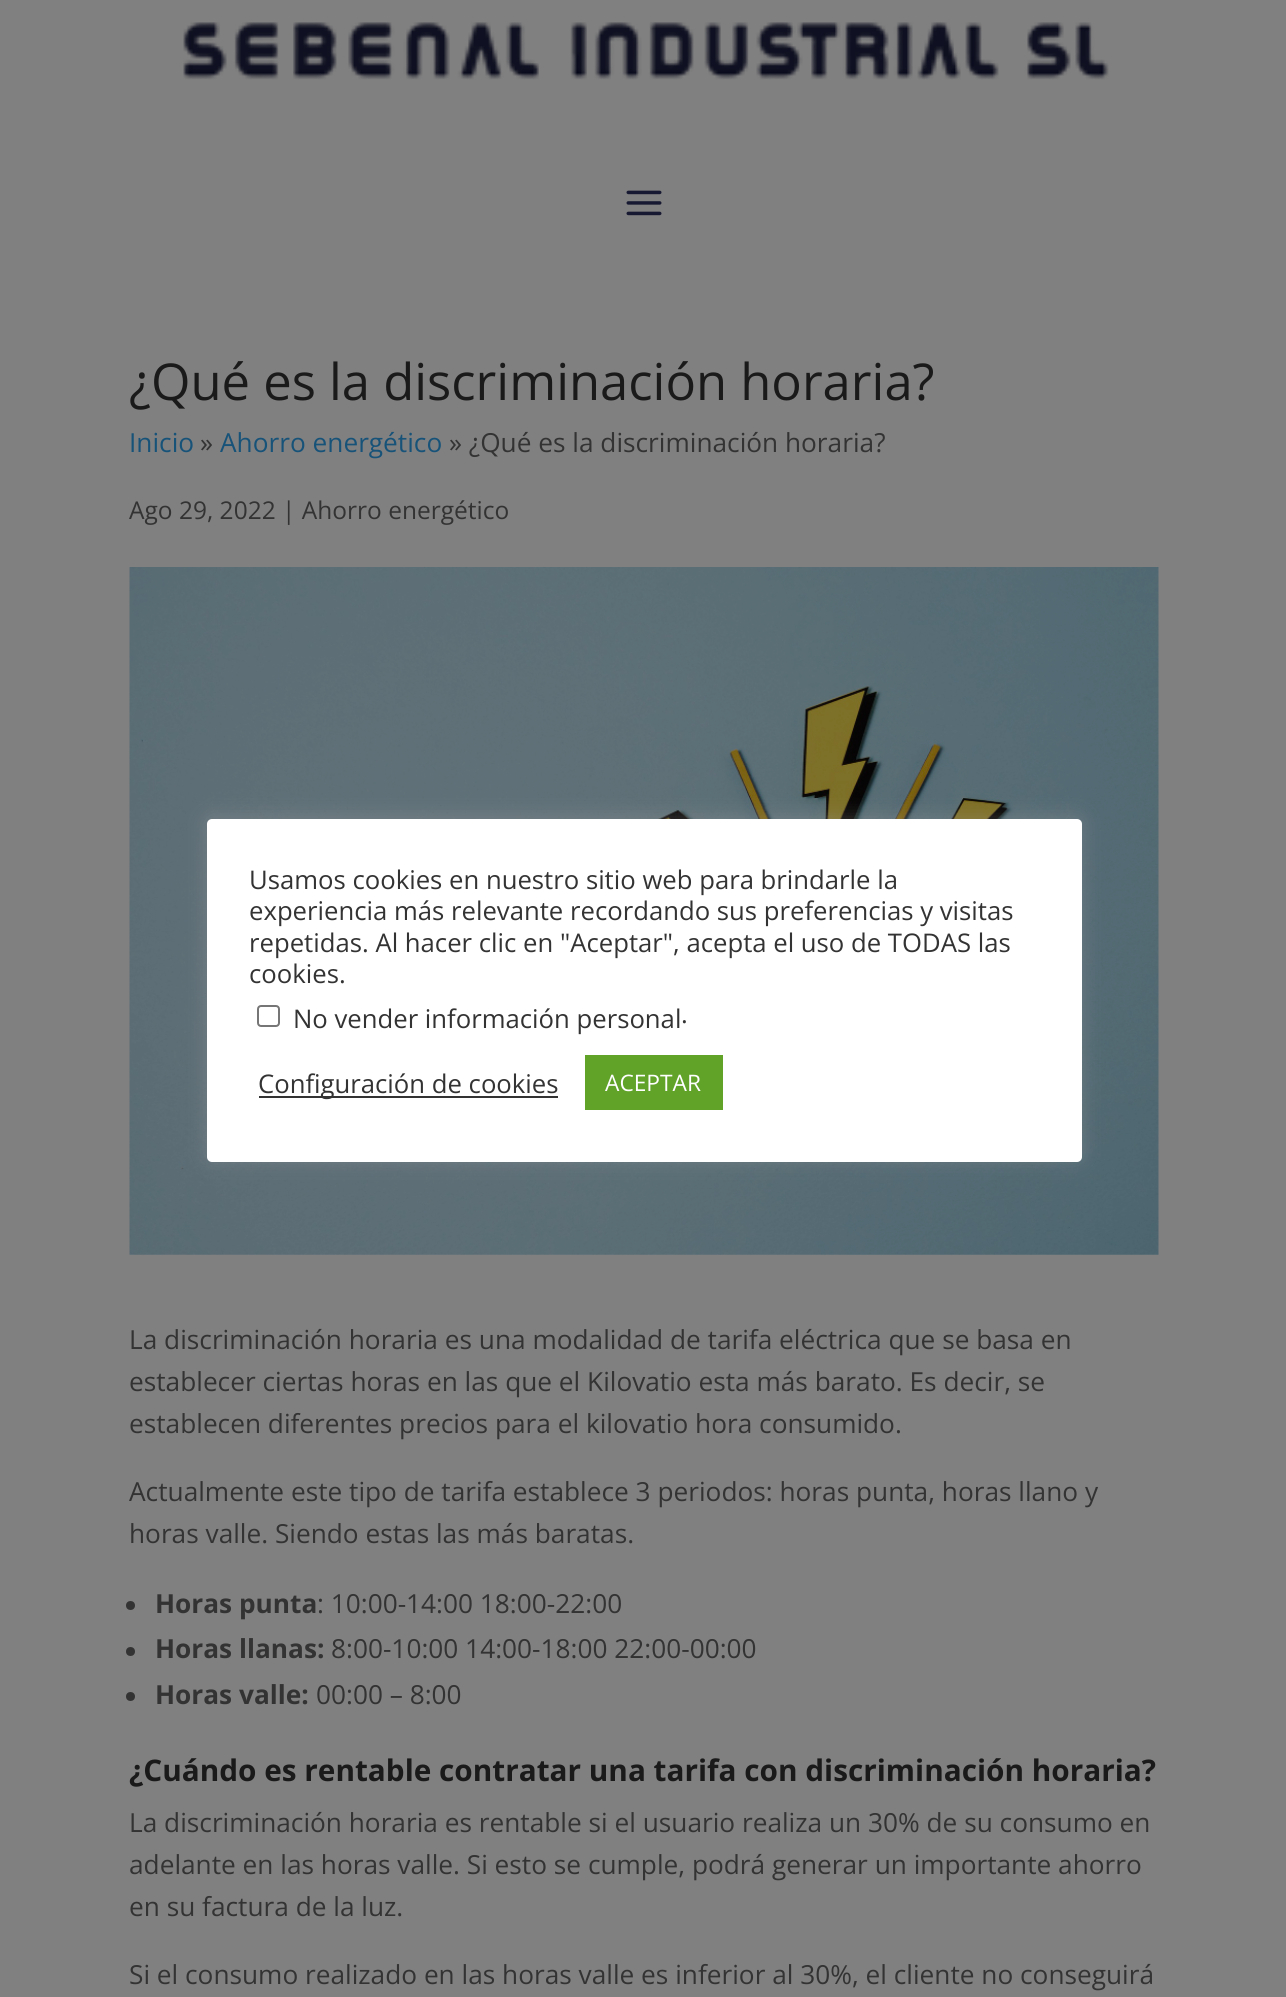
#include <cairo.h>
#include <math.h>
#include <stddef.h>

static cairo_t *c;
static void C(unsigned color){cairo_set_source_rgb(c, (color >> 16) / 255.0, (color >> 8 & 255) / 255.0, (color & 255) / 255.0);}
static void F(const char *family, double size, int italic, int bold){cairo_select_font_face(c, family, italic ? CAIRO_FONT_SLANT_ITALIC : CAIRO_FONT_SLANT_NORMAL,bold ? CAIRO_FONT_WEIGHT_BOLD : CAIRO_FONT_WEIGHT_NORMAL);cairo_set_font_size(c, size);}
static void T(double x, double y, const char *s){cairo_move_to(c, x, y);cairo_show_text(c, s);}
static void R(double x, double y, double w, double h){cairo_rectangle(c, x, y, w, h);cairo_fill(c);}
static void Q(double x, double y, double w, double h, double r){cairo_new_sub_path(c);cairo_arc(c, x + w - r, y + h - r, r, 0, M_PI / 2);cairo_arc(c, x + r, y + h - r, r, M_PI / 2, M_PI);cairo_arc(c, x + r, y + r, r, M_PI, 1.5 * M_PI);cairo_arc(c, x + w - r, y + r, r, 1.5 * M_PI, 2 * M_PI);cairo_close_path(c);}
static void S(double x, double y, double w, double h, double r, double blur, double alpha){cairo_push_group_with_content(c, CAIRO_CONTENT_ALPHA);cairo_set_operator(c, CAIRO_OPERATOR_SOURCE);for (int i = 15; i >= -15 && fmin(w, h) + blur * i / 3 > 0; i -= 2) {double e = blur * i / 6;cairo_set_source_rgba(c, 0, 0, 0, alpha * erfc((i - 1) / 8.5) / 2);Q(x - e, y - e, w + 2 * e, h + 2 * e, fmax(0, fmin(r + e + blur * .6, fmin(w, h) / 2 + e)));cairo_fill(c);}cairo_pattern_t *soft = cairo_pop_group(c);cairo_mask(c, soft);cairo_pattern_destroy(soft);}
static void I(const char *path, double x, double y, double w, double h){cairo_surface_t *image = cairo_image_surface_create_from_png(path);cairo_save(c);cairo_set_source_surface(c, image, x, y);cairo_rectangle(c, x, y, w, h);cairo_fill(c);cairo_restore(c);cairo_surface_destroy(image);}
int main(void) {
cairo_surface_t *surface = cairo_image_surface_create(CAIRO_FORMAT_RGB24, 1286, 1997);
c = cairo_create(surface);
cairo_font_options_t *options = cairo_font_options_create();
cairo_font_options_set_hint_metrics(options, CAIRO_HINT_METRICS_OFF);
cairo_font_options_set_hint_style(options, CAIRO_HINT_STYLE_NONE);
cairo_set_font_options(c, options);
cairo_set_miter_limit(c, 4);
C(0x808080);
cairo_paint(c);
I("1.png",183,22,926,58);
I("2.png",626,190,36,26);
F("Open Sans",50.75,0,0);
C(0x1a1a1a);
T(129,400,"¿Qué es la discriminación horaria?");
F("Open Sans",26.25,0,0);
C(0x175279);
T(129,452,"Inicio");
C(0x333333);
T(200,452,"»");
C(0x175279);
T(220,452,"Ahorro energético");
C(0x333333);
T(449,452,"» ¿Qué es la discriminación horaria?");
F("Open Sans",24.5,0,0);
T(129,519,"Ago 29, 2022 | Ahorro energético");
I("3.png",129,567,1030,688);
F("Open Sans",26.25,0,0);
T(129,1349,"La discriminación horaria es una modalidad de tarifa eléctrica que se basa en");
T(129,1391,"establecer ciertas horas en las que el Kilovatio esta más barato. Es decir, se");
T(129,1433,"establecen diferentes precios para el kilovatio hora consumido.");
T(129,1501,"Actualmente este tipo de tarifa establece 3 periodos: horas punta, horas llano y");
T(129,1543,"horas valle. Siendo estas las más baratas.");
cairo_new_path(c);
cairo_arc(c,130.5,1605.5,4.5,0,2 * M_PI);
cairo_fill(c);
F("Open Sans",26.25,0,1);
T(155,1613,"Horas punta");
F("Open Sans",26.25,0,0);
T(317,1613,": 10:00-14:00 18:00-22:00");
cairo_new_path(c);
cairo_arc(c,130.5,1651.5,4.5,0,2 * M_PI);
cairo_fill(c);
F("Open Sans",26.25,0,1);
T(155,1658,"Horas llanas:");
F("Open Sans",26.25,0,0);
T(331,1658,"8:00-10:00 14:00-18:00 22:00-00:00");
cairo_new_path(c);
cairo_arc(c,130.5,1696.5,4.5,0,2 * M_PI);
cairo_fill(c);
F("Open Sans",26.25,0,1);
T(155,1704,"Horas valle:");
F("Open Sans",26.25,0,0);
T(316,1704,"00:00 – 8:00");
F("Open Sans",29.75,0,1);
C(0x1a1a1a);
T(129,1781,"¿Cuándo es rentable contratar una tarifa con discriminación horaria?");
F("Open Sans",26.25,0,0);
C(0x333333);
T(129,1832,"La discriminación horaria es rentable si el usuario realiza un 30% de su consumo en");
T(129,1874,"adelante en las horas valle. Si esto se cumple, podrá generar un importante ahorro");
T(129,1916,"en su factura de la luz.");
T(129,1984,"Si el consumo realizado en las horas valle es inferior al 30%, el cliente no conseguirá");
C(0xacabab);
S(207,817,875,343,5,9,.3);
C(0xffffff);
Q(207,819,875,343,5);
cairo_fill(c);
F("Open Sans",25.7,0,0);
C(0x333333);
T(249,889,"Usamos cookies en nuestro sitio web para brindarle la");
T(249,920,"experiencia más relevante recordando sus preferencias y visitas");
T(249,952,"repetidas. Al hacer clic en \"Aceptar\", acepta el uso de TODAS las");
T(249,983,"cookies.");
Q(258,1006,21,20,3);
C(0x767676);
cairo_stroke(c);
C(0x333333);
T(293,1028,"No vender información personal");
T(681,1023,".");
R(259,1096,299,2);
T(258,1093,"Configuración de cookies");
C(0x61a229);
R(585,1055,138,55);
F("Open Sans",22.75,0,0);
C(0xffffff);
T(605,1091,"ACEPTAR");
cairo_surface_write_to_png(surface, "o.png");
cairo_font_options_destroy(options);
cairo_destroy(c);
cairo_surface_destroy(surface);
return 0;
}
